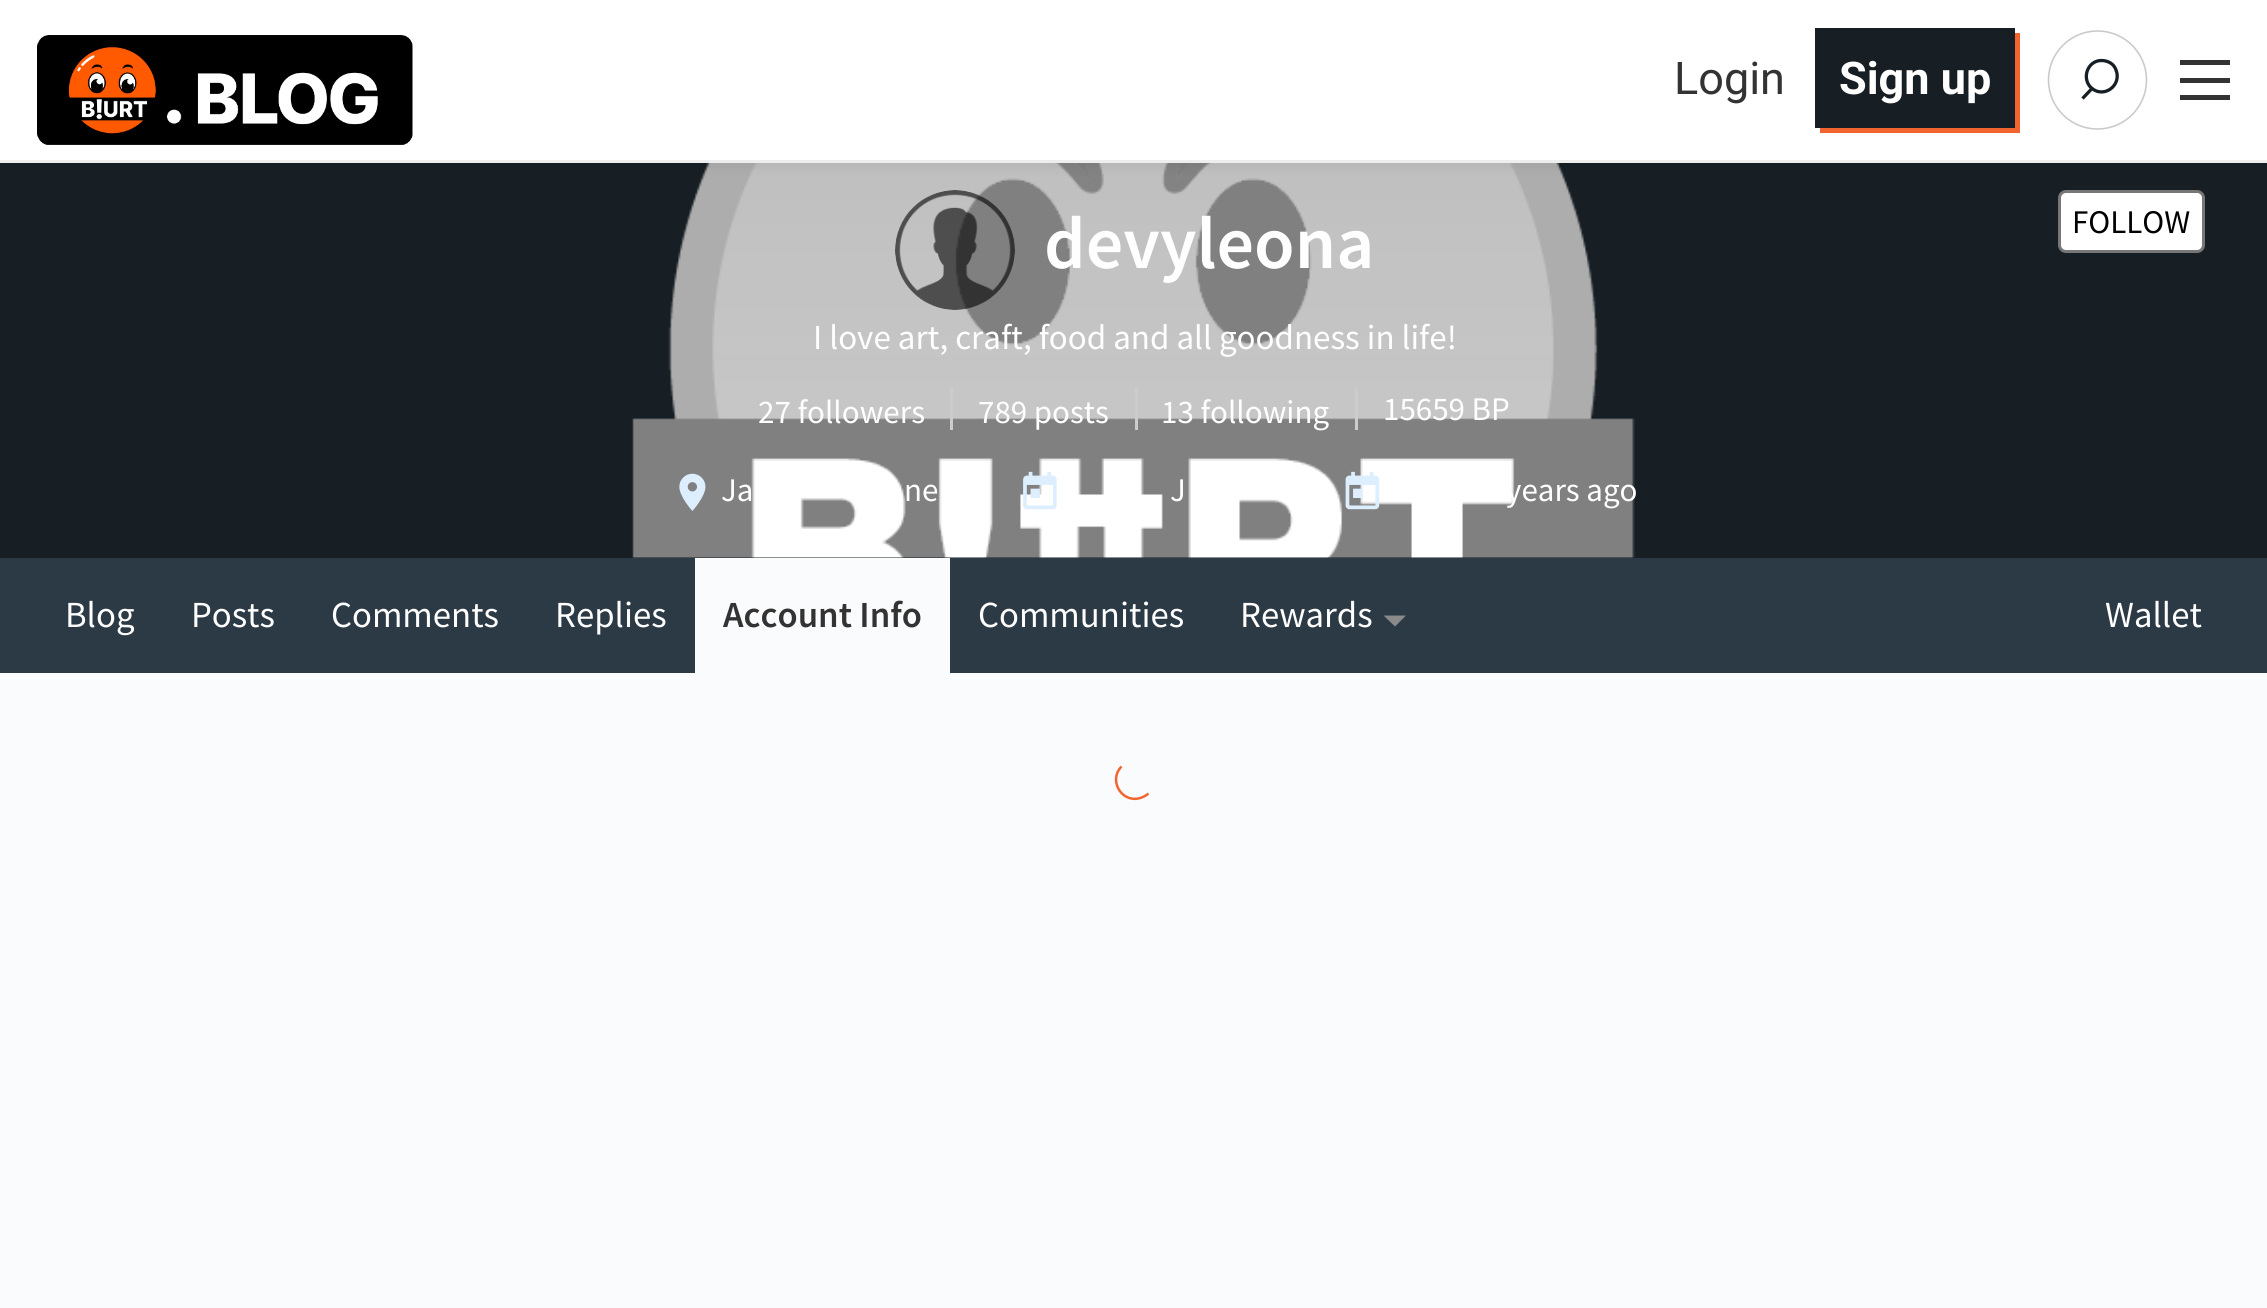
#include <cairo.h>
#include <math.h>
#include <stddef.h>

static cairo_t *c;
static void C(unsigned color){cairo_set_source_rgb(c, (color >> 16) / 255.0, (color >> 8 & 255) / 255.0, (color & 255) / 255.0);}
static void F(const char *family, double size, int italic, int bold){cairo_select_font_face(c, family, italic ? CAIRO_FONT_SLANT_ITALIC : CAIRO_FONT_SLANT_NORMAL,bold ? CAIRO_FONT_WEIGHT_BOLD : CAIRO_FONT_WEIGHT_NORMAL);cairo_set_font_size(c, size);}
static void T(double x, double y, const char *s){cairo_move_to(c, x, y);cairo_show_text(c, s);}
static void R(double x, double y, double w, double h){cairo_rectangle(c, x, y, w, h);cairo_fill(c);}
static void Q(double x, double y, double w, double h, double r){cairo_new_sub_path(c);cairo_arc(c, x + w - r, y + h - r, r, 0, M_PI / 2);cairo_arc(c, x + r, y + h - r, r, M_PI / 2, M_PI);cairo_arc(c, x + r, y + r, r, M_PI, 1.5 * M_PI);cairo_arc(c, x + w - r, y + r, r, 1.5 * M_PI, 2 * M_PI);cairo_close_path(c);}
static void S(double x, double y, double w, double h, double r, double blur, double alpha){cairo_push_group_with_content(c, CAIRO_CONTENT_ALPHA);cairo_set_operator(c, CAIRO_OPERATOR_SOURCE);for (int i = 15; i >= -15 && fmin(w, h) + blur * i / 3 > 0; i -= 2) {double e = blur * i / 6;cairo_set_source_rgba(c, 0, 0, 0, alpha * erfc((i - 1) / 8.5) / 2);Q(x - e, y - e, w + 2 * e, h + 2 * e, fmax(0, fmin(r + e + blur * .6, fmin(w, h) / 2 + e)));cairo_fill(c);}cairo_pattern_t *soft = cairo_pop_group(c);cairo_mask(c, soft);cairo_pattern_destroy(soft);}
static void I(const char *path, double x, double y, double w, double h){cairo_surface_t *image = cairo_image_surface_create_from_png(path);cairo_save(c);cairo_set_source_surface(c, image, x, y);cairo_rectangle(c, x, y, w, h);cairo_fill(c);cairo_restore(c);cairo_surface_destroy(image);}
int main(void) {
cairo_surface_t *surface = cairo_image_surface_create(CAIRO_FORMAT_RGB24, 2267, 1308);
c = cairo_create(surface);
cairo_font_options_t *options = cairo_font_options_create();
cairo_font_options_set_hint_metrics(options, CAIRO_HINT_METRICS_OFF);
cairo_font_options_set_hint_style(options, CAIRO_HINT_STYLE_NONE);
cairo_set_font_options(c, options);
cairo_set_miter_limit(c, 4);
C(0xfafbfc);
cairo_paint(c);
C(0x171f24);
R(0,163,2267,395);
I("2.png",632,163,1003,395);
C(0x000000);
S(0,5,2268,163,0,5,.05);
C(0xffffff);
R(0,0,2267,160);
C(0xeeeeee);
R(0,160,2267,3);
I("1.png",37,35,376,110);
F("Roboto",45,0,0);
C(0x333333);
T(1674,94,"Login");
C(0xf2652e);
cairo_new_path(c);
cairo_move_to(c,1820,128);
cairo_line_to(c,1820,133);
cairo_line_to(c,2020,133);
cairo_line_to(c,2020,33);
cairo_line_to(c,2015,33);
cairo_line_to(c,2015,128);
cairo_close_path(c);
cairo_fill(c);
C(0x171f24);
R(1815,28,200,100);
F("Roboto",45,0,1);
C(0xfefefe);
T(1839,94,"Sign up");
cairo_new_path(c);
cairo_arc(c,2097.5,80,49,0,2 * M_PI);
C(0xcacaca);
cairo_set_line_width(c,1.6);
cairo_stroke(c);
cairo_new_path(c);
cairo_move_to(c,2092,88.5);
cairo_line_to(c,2082.5,98.5);
cairo_line_to(c,2092,88.5);
cairo_curve_to(c,2081,79.5,2087,60.5,2101.5,60.5);
cairo_curve_to(c,2105,60.5,2108,61.5,2110.5,63);
cairo_curve_to(c,2113,64.5,2115,67,2116,70);
cairo_curve_to(c,2122,85,2104.5,98.5,2092,88.5);
cairo_close_path(c);
C(0x171f24);
cairo_set_line_width(c,3.3);
cairo_stroke(c);
C(0x333333);
R(2180,95,50,5);
R(2180,78,50,5);
R(2180,60,50,5);
I("3.png",895,190,120,120);
F("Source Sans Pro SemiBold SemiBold",74,0,0);
C(0xfefefe);
T(1044,268,"devyleona");
C(0xffffff);
Q(2059.5,191.5,144,60,6.5);
cairo_fill_preserve(c);
C(0x777777);
cairo_set_line_width(c,3);
cairo_stroke(c);
F("Source Sans Pro",33,0,0);
C(0x000000);
T(2072,233,"FOLLOW");
F("Source Sans Pro",35,0,0);
C(0xfefefe);
T(813,349,"I love art, craft, food and all goodness in life!");
F("Source Sans Pro",33,0,0);
T(758,423,"27 followers");
T(978,423,"789 posts");
C(0xcccccc);
R(950,388,3,42);
C(0xfefefe);
T(1161,423,"13 following");
C(0xcccccc);
R(1135,388,3,42);
C(0xfefefe);
T(1383,420,"15659 BP");
C(0xcccccc);
R(1355,388,3,42);
I("4.png",679,473,27,38);
C(0xfefefe);
T(721,501,"Ja");
T(904,501,"ne");
I("5.png",1023,471,34,39);
T(1170,501,"J");
I("6.png",1345,471,35,39);
T(1506,501,"years ago");
C(0x2c3a45);
R(0,558,2267,115);
F("Source Sans Pro",36.75,0,0);
C(0xfefefe);
T(65,627,"Blog");
T(191,627,"Posts");
T(331,627,"Comments");
T(555,627,"Replies");
C(0xfafbfc);
R(695,558,255,115);
F("Source Sans Pro SemiBold SemiBold",36.75,0,0);
C(0x333333);
T(723,627,"Account Info");
F("Source Sans Pro",36.75,0,0);
C(0xfefefe);
T(978,627,"Communities");
T(1240,627,"Rewards");
C(0x8a8a8a);
cairo_new_path(c);
cairo_move_to(c,1383.5,615.5);
cairo_line_to(c,1395,626.5);
cairo_line_to(c,1406,615.5);
cairo_close_path(c);
cairo_fill(c);
C(0xfefefe);
T(2105,627,"Wallet");
cairo_new_path(c);
cairo_move_to(c,1148.5,793.5);
cairo_curve_to(c,1145.5,796,1142.5,797.5,1138.5,798.5);
cairo_curve_to(c,1120.5,802,1108.5,779.5,1121.5,766.5);
C(0xf2652e);
cairo_set_line_width(c,2.5);
cairo_stroke(c);
cairo_surface_write_to_png(surface, "o.png");
cairo_font_options_destroy(options);
cairo_destroy(c);
cairo_surface_destroy(surface);
return 0;
}
